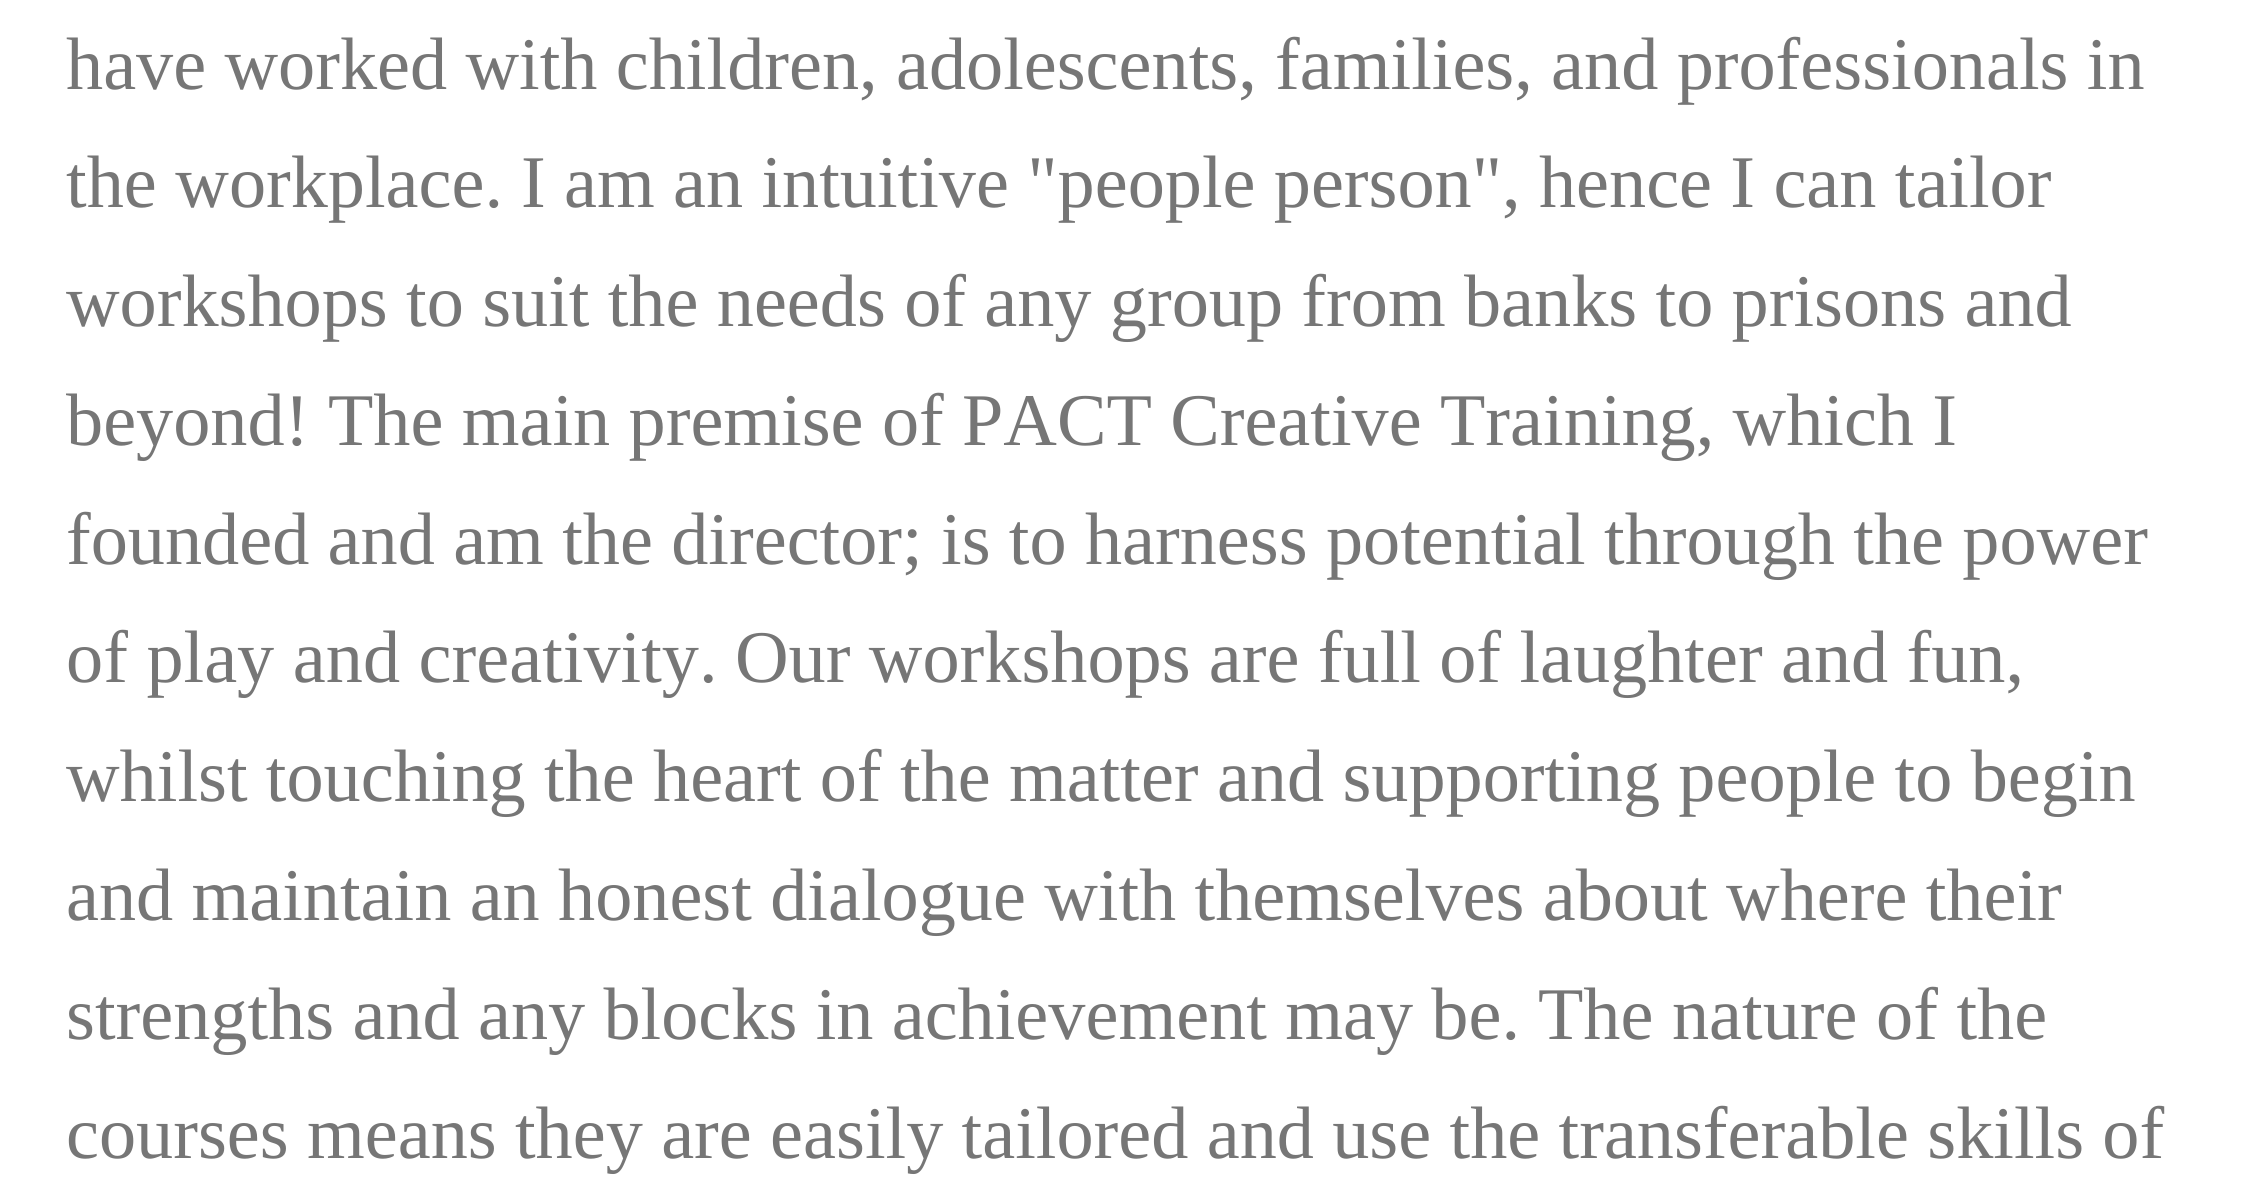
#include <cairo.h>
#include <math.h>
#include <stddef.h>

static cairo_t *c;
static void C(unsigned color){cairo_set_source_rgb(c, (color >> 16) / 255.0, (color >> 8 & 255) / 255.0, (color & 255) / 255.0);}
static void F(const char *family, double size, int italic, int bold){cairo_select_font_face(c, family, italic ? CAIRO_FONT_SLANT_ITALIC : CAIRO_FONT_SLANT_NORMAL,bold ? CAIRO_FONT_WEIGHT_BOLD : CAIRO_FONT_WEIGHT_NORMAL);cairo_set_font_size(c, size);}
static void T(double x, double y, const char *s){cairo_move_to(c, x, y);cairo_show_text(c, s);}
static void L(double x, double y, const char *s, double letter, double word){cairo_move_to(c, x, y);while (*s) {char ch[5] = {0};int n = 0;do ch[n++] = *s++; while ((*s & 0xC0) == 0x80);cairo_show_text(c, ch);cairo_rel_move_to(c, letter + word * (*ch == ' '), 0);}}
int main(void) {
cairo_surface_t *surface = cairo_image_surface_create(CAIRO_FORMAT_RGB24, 2254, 1199);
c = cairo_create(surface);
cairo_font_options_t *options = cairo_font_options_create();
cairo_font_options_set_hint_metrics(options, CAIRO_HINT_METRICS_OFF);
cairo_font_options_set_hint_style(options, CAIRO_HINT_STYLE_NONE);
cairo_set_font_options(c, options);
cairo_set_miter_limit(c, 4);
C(0xffffff);
cairo_paint(c);
F("Liberation Serif",74.25,0,0);
C(0x767676);
L(66,89,"have worked with children, adolescents, families, and professionals in",0,-.25);
T(66,207,"the workplace.");
L(521,207,"I am an intuitive \"people person\", hence I can tailor",0,-.25);
L(66,326,"workshops to suit the needs of any group from banks to prisons and",0,-.25);
T(66,445,"beyond!");
L(328,445,"The main premise of PACT Creative Training, which I",0,-.25);
L(66,564,"founded and am the director; is to harness potential through the power",0,-.25);
T(66,682,"of play and creativity.");
L(735,682,"Our workshops are full of laughter and fun,",0,-.25);
L(66,801,"whilst touching the heart of the matter and supporting people to begin",0,-.25);
L(66,920,"and maintain an honest dialogue with themselves about where their",0,-.25);
L(66,1039,"strengths and any blocks in achievement may be.",0,-.25);
T(1538,1039,"The nature of the");
L(66,1158,"courses means they are easily tailored and use the transferable skills of",0,-.25);
cairo_surface_write_to_png(surface, "o.png");
cairo_font_options_destroy(options);
cairo_destroy(c);
cairo_surface_destroy(surface);
return 0;
}
